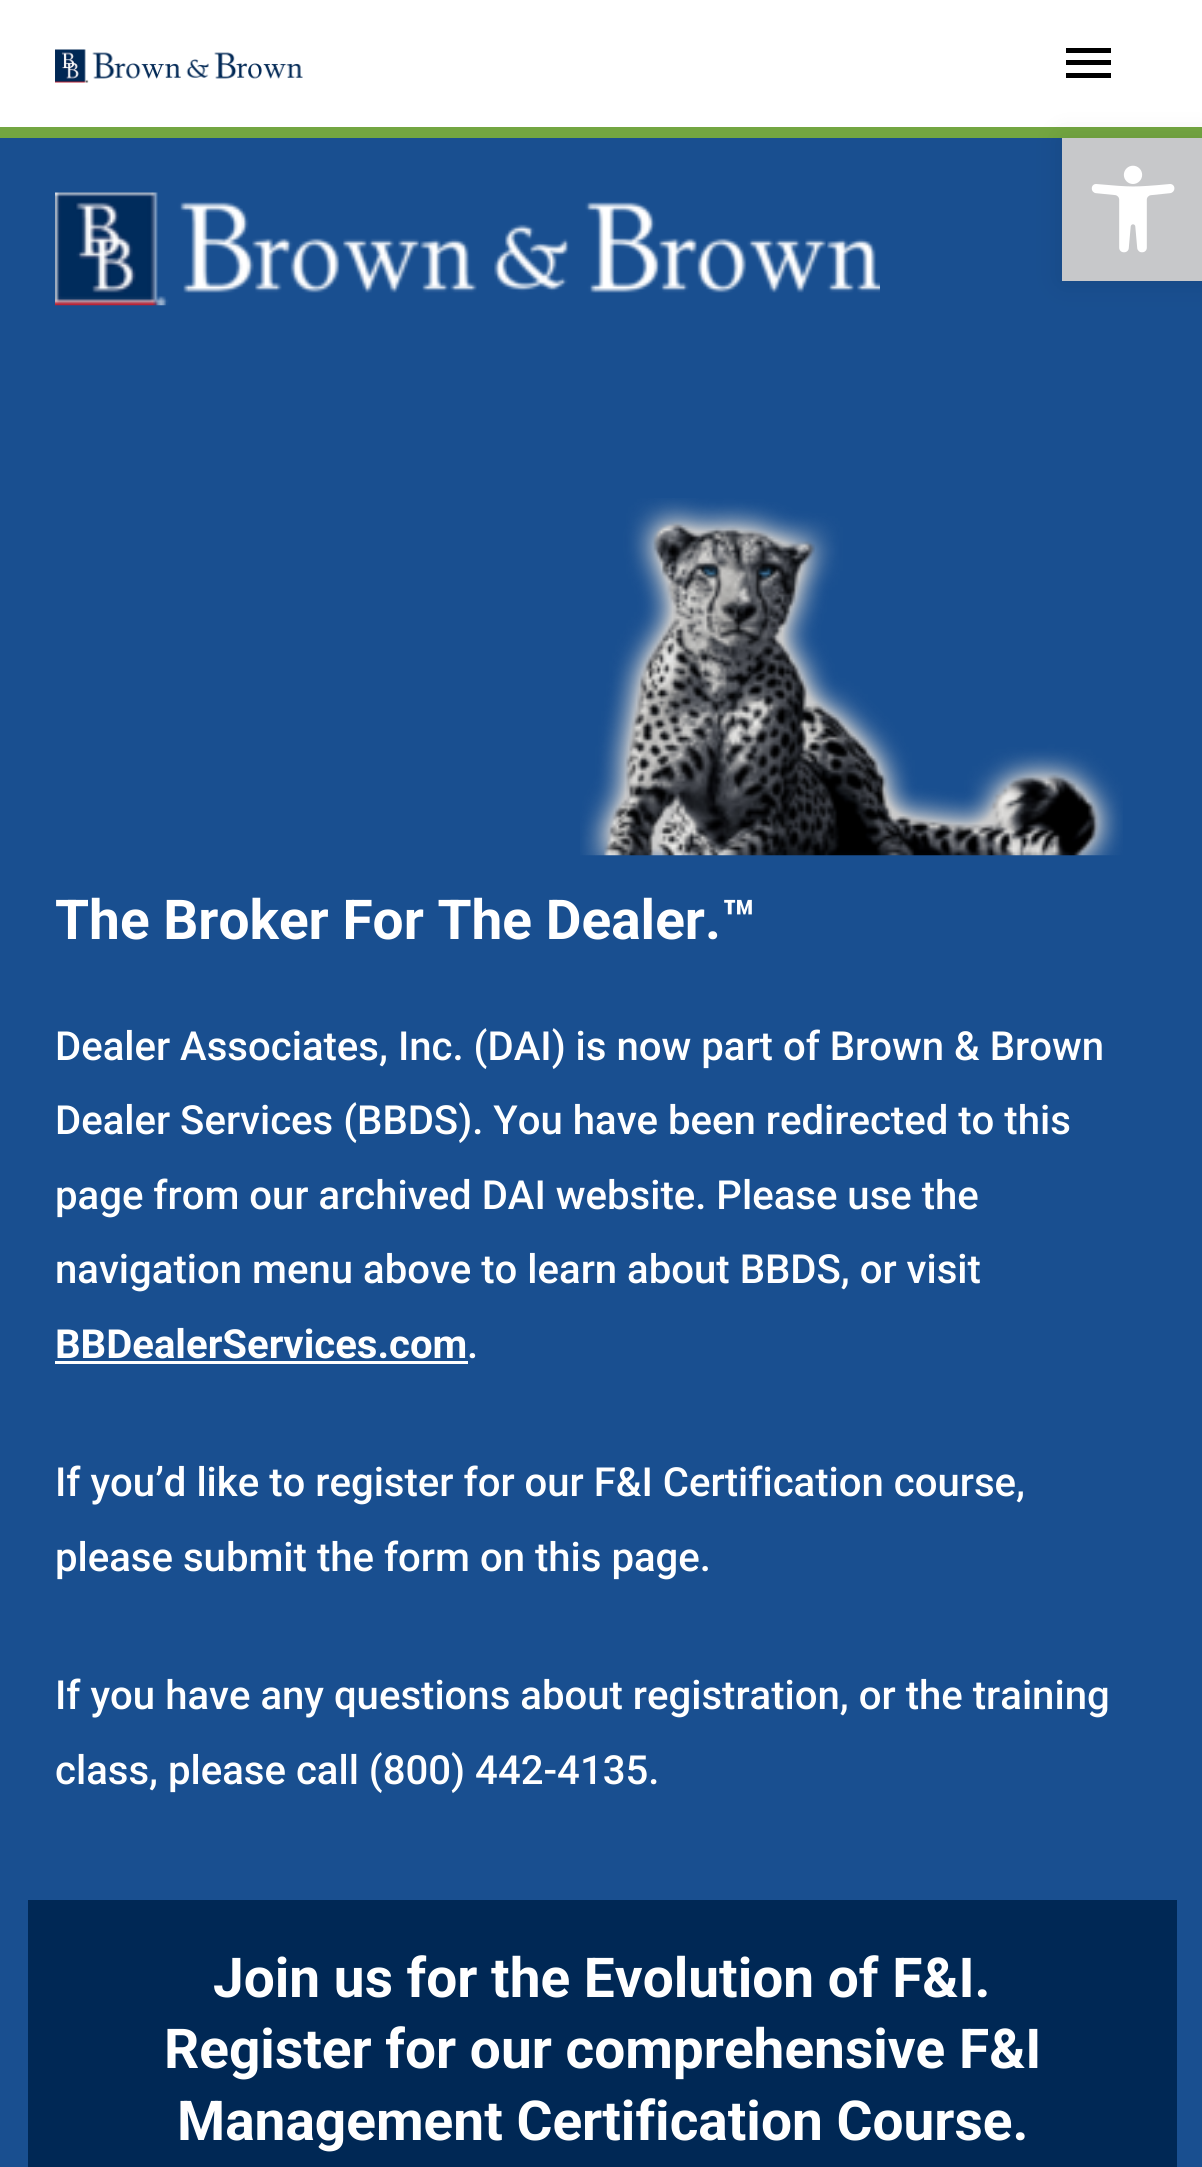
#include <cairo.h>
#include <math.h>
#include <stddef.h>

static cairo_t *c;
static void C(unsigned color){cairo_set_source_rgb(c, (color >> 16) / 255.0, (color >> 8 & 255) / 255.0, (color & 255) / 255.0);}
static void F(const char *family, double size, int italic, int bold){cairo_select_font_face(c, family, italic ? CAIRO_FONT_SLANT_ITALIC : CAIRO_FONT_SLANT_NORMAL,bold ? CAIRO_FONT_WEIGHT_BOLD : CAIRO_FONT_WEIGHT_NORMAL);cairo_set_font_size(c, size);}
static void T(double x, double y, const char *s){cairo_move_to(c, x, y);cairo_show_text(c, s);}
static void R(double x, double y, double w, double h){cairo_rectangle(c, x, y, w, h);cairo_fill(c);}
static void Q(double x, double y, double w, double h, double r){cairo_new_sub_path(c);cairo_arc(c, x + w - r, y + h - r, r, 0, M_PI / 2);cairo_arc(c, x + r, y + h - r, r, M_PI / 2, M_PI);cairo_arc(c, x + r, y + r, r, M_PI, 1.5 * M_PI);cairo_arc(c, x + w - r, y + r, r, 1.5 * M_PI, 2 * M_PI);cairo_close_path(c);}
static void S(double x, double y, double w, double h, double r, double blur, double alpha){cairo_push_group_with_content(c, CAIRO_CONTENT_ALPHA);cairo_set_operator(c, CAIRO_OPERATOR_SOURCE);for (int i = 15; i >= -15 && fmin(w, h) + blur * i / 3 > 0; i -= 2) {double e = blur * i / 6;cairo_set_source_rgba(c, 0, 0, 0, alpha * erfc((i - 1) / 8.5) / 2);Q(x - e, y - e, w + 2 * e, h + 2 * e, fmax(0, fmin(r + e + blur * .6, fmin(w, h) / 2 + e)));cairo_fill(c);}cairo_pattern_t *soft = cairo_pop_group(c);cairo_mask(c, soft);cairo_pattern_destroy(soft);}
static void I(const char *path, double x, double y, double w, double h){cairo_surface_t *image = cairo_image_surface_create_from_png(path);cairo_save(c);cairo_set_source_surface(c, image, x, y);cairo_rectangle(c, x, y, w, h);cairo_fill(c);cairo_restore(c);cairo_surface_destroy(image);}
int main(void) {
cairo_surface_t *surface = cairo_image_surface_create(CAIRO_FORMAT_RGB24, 1202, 2167);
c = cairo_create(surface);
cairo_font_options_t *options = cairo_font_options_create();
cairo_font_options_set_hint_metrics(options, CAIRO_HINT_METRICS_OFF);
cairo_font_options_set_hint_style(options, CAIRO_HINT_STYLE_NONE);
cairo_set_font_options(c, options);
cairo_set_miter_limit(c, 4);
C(0xffffff);
cairo_paint(c);
C(0x73a641);
R(0,127,1202,11);
C(0x194f90);
R(0,138,1202,2029);
C(0x000000);
S(1062,138,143,143,0,14,.1);
C(0xc7c8ca);
R(1062,138,140,143);
I("1.png",1091,165,84,88);
I("2.png",55,49,248,34);
C(0x000000);
cairo_new_path(c);
cairo_move_to(c,1066,48);
cairo_line_to(c,1111,48);
cairo_line_to(c,1111,53);
cairo_line_to(c,1066,53);
cairo_close_path(c);
cairo_move_to(c,1066,65);
cairo_line_to(c,1066,60);
cairo_line_to(c,1111,60);
cairo_line_to(c,1111,65);
cairo_close_path(c);
cairo_move_to(c,1066,78);
cairo_line_to(c,1066,73);
cairo_line_to(c,1111,73);
cairo_line_to(c,1111,78);
cairo_close_path(c);
cairo_fill(c);
I("3.png",55,192,825,114);
I("4.png",580,498,543,358);
F("Roboto",55,0,1);
C(0xffffff);
T(55,939,"The Broker For The Dealer.™");
F("Roboto Medium",40.1,0,0);
T(55,1060,"Dealer Associates, Inc. (DAI) is now part of Brown & Brown");
T(55,1134,"Dealer Services (BBDS). You have been redirected to this");
T(55,1209,"page from our archived DAI website. Please use the");
T(55,1283,"navigation menu above to learn about BBDS, or visit");
F("Roboto",40.1,0,1);
T(55,1358,"BBDealerServices.com");
R(55,1361,413,3);
F("Roboto Medium",40.1,0,0);
T(467,1358,".");
T(55,1496,"If you’d like to register for our F&I Certification course,");
T(55,1571,"please submit the form on this page.");
T(55,1709,"If you have any questions about registration, or the training");
T(55,1784,"class, please call (800) 442-4135.");
C(0x002855);
R(28,1900,1149,267);
F("Roboto",55,0,1);
C(0xffffff);
T(213,1997,"Join us for the Evolution of F&I.");
T(164,2068,"Register for our comprehensive F&I");
T(177,2140,"Management Certification Course.");
cairo_surface_write_to_png(surface, "o.png");
cairo_font_options_destroy(options);
cairo_destroy(c);
cairo_surface_destroy(surface);
return 0;
}
